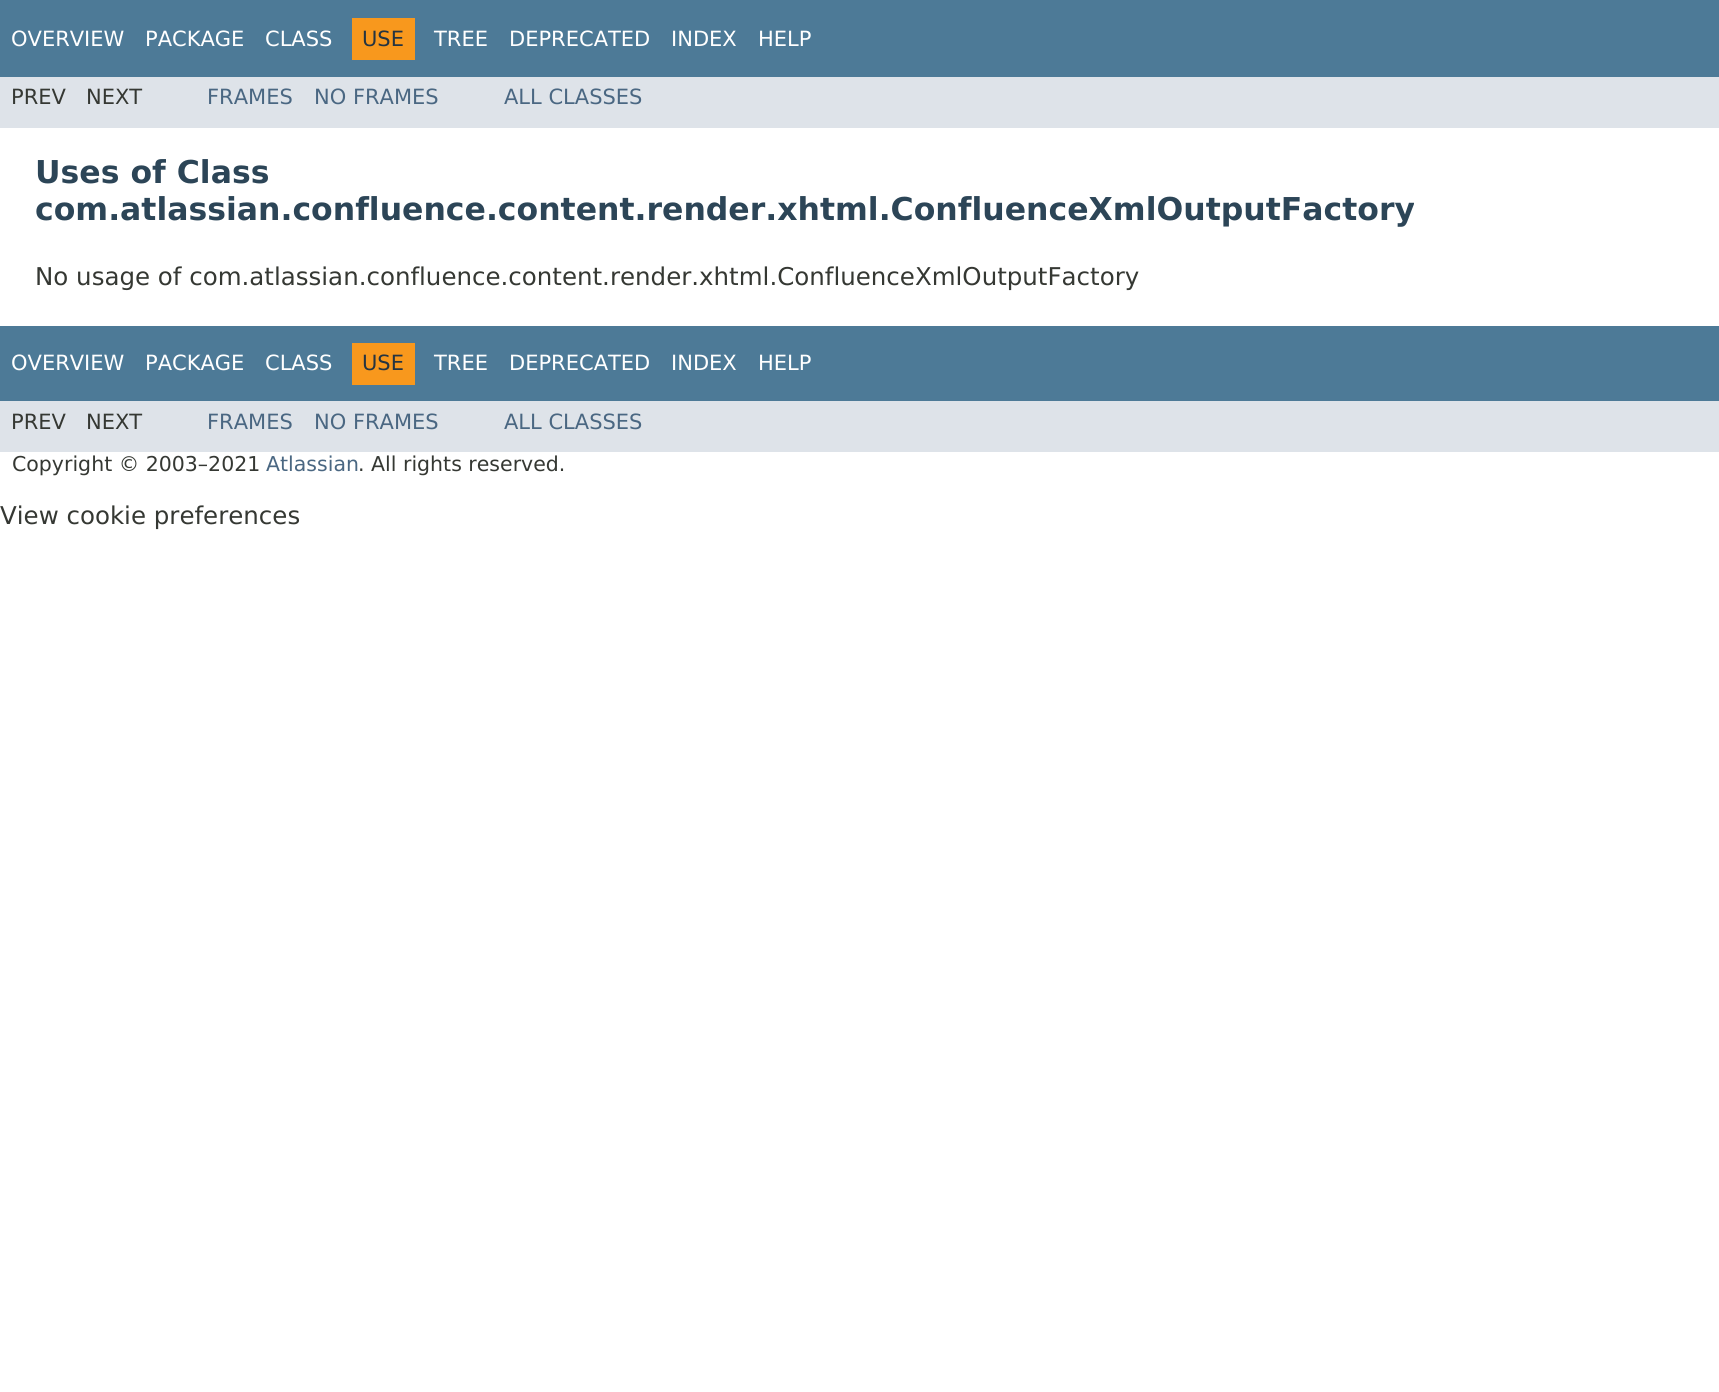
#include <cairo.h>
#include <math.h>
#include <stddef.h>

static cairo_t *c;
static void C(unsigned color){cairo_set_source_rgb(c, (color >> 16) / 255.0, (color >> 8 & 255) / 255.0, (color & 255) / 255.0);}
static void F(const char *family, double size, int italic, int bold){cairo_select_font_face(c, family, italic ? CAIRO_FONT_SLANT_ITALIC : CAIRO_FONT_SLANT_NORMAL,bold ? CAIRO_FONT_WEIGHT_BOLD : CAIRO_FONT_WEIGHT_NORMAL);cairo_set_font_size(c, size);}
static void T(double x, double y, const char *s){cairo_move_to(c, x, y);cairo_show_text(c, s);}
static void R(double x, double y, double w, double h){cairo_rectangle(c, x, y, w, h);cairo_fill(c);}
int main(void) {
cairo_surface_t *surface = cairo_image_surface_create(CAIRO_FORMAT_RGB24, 1719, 1392);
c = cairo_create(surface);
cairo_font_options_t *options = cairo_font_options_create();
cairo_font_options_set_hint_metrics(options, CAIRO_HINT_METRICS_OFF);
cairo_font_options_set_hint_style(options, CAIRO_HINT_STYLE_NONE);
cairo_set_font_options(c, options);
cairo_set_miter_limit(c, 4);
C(0xffffff);
cairo_paint(c);
C(0x4d7a97);
R(0,0,1719,77);
F("DejaVu Sans",21,0,0);
C(0xffffff);
T(11,46,"OVERVIEW");
T(145,46,"PACKAGE");
T(265,46,"CLASS");
C(0xf8981d);
R(352,18,63,42);
C(0x253441);
T(362,46,"USE");
C(0xffffff);
T(434,46,"TREE");
T(509,46,"DEPRECATED");
T(671,46,"INDEX");
T(758,46,"HELP");
C(0xdee3e9);
R(0,77,1719,51);
C(0x353833);
T(11,104,"PREV");
T(86,104,"NEXT");
C(0x4a6782);
T(207,104,"FRAMES");
T(314,104,"NO FRAMES");
T(504,104,"ALL CLASSES");
F("DejaVu Sans",31.5,0,1);
C(0x2c4557);
T(35,183,"Uses of Class");
T(35,220,"com.atlassian.confluence.content.render.xhtml.ConfluenceXmlOutputFactory");
F("DejaVu Sans",24.5,0,0);
C(0x353833);
T(35,285,"No usage of com.atlassian.confluence.content.render.xhtml.ConfluenceXmlOutputFactory");
C(0x4d7a97);
R(0,326,1719,75);
F("DejaVu Sans",21,0,0);
C(0xffffff);
T(11,370,"OVERVIEW");
T(145,370,"PACKAGE");
T(265,370,"CLASS");
C(0xf8981d);
R(352,343,63,42);
C(0x253441);
T(362,370,"USE");
C(0xffffff);
T(434,370,"TREE");
T(509,370,"DEPRECATED");
T(671,370,"INDEX");
T(758,370,"HELP");
C(0xdee3e9);
R(0,401,1719,51);
C(0x353833);
T(11,429,"PREV");
T(86,429,"NEXT");
C(0x4a6782);
T(207,429,"FRAMES");
T(314,429,"NO FRAMES");
T(504,429,"ALL CLASSES");
F("DejaVu Sans",20.5,0,0);
C(0x353833);
T(12,471,"Copyright © 2003–2021");
C(0x4a6782);
T(266,471,"Atlassian");
C(0x353833);
T(358,471,". All rights reserved.");
F("DejaVu Sans",24.5,0,0);
T(0,524,"View cookie preferences");
cairo_surface_write_to_png(surface, "o.png");
cairo_font_options_destroy(options);
cairo_destroy(c);
cairo_surface_destroy(surface);
return 0;
}
